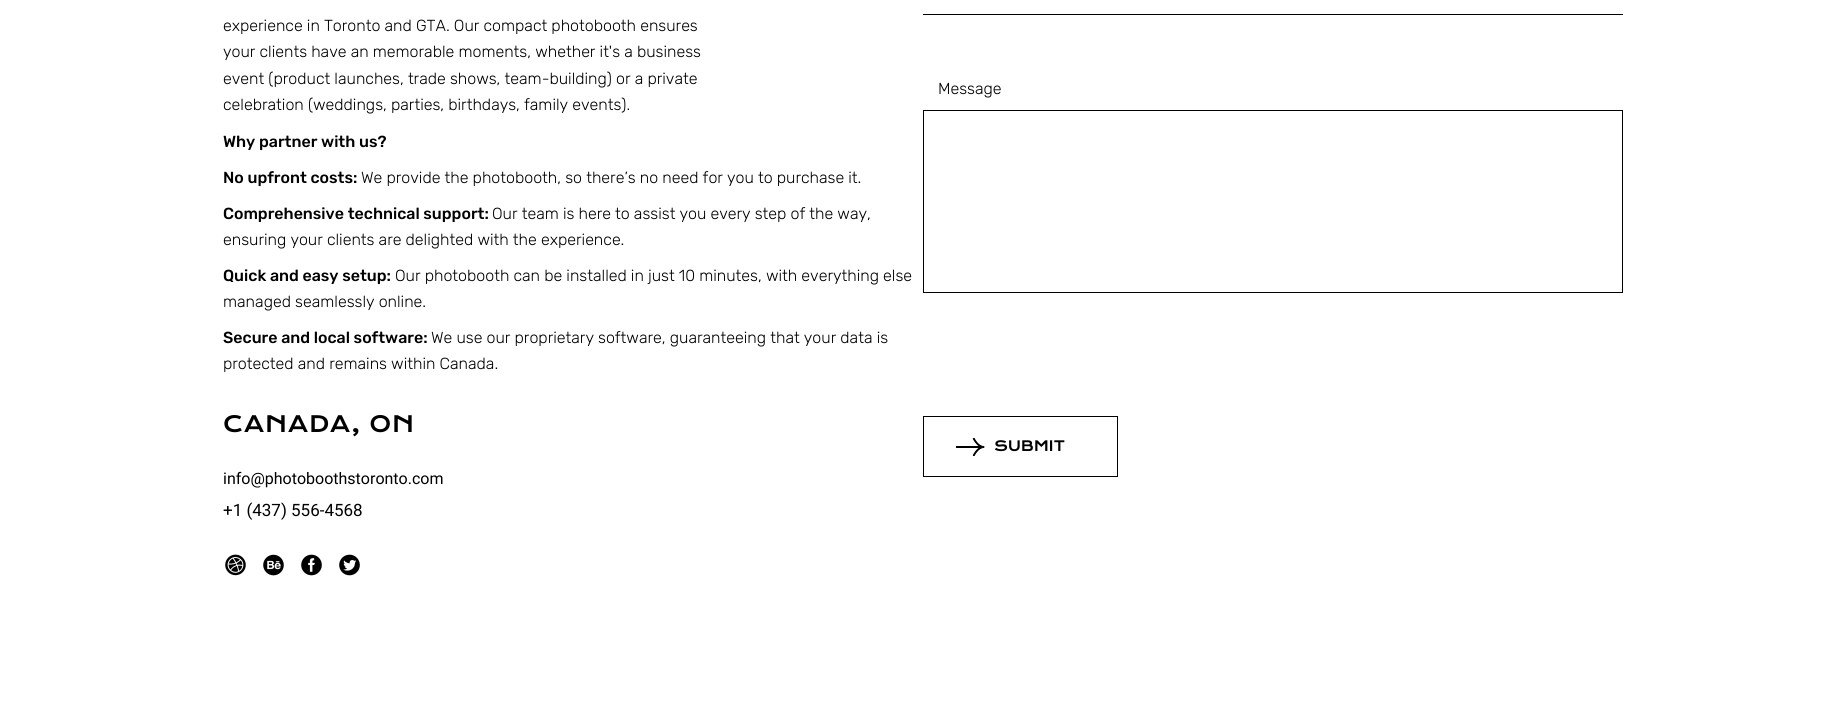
#include <cairo.h>
#include <math.h>
#include <stddef.h>

static cairo_t *c;
static void C(unsigned color){cairo_set_source_rgb(c, (color >> 16) / 255.0, (color >> 8 & 255) / 255.0, (color & 255) / 255.0);}
static void F(const char *family, double size, int italic, int bold){cairo_select_font_face(c, family, italic ? CAIRO_FONT_SLANT_ITALIC : CAIRO_FONT_SLANT_NORMAL,bold ? CAIRO_FONT_WEIGHT_BOLD : CAIRO_FONT_WEIGHT_NORMAL);cairo_set_font_size(c, size);}
static void T(double x, double y, const char *s){cairo_move_to(c, x, y);cairo_show_text(c, s);}
static void L(double x, double y, const char *s, double letter, double word){cairo_move_to(c, x, y);while (*s) {char ch[5] = {0};int n = 0;do ch[n++] = *s++; while ((*s & 0xC0) == 0x80);cairo_show_text(c, ch);cairo_rel_move_to(c, letter + word * (*ch == ' '), 0);}}
static void R(double x, double y, double w, double h){cairo_rectangle(c, x, y, w, h);cairo_fill(c);}
static void I(const char *path, double x, double y, double w, double h){cairo_surface_t *image = cairo_image_surface_create_from_png(path);cairo_save(c);cairo_set_source_surface(c, image, x, y);cairo_rectangle(c, x, y, w, h);cairo_fill(c);cairo_restore(c);cairo_surface_destroy(image);}
int main(void) {
cairo_surface_t *surface = cairo_image_surface_create(CAIRO_FORMAT_RGB24, 1845, 701);
c = cairo_create(surface);
cairo_font_options_t *options = cairo_font_options_create();
cairo_font_options_set_hint_metrics(options, CAIRO_HINT_METRICS_OFF);
cairo_font_options_set_hint_style(options, CAIRO_HINT_STYLE_NONE);
cairo_set_font_options(c, options);
cairo_set_miter_limit(c, 4);
C(0xffffff);
cairo_paint(c);
F("Rubik Light",16,0,0);
C(0x000000);
T(223,31,"experience in Toronto and GTA. Our compact photobooth ensures");
T(223,57,"your clients have an memorable moments, whether it's a business");
T(223,84,"event (product launches, trade shows, team-building) or a private");
T(223,110,"celebration (weddings, parties, birthdays, family events).");
F("Rubik Medium",16,0,0);
T(223,147,"Why partner with us?");
T(223,183,"No upfront costs:");
F("Rubik Light",16,0,0);
T(361,183,"We provide the photobooth, so there’s no need for you to purchase it.");
F("Rubik Medium",16,0,0);
T(223,219,"Comprehensive technical support:");
F("Rubik Light",16,0,0);
T(492,219,"Our team is here to assist you every step of the way,");
T(223,245,"ensuring your clients are delighted with the experience.");
F("Rubik Medium",16,0,0);
T(223,281,"Quick and easy setup:");
F("Rubik Light",16,0,0);
T(395,281,"Our photobooth can be installed in just 10 minutes, with everything else");
T(223,307,"managed seamlessly online.");
F("Rubik Medium",16,0,0);
T(223,343,"Secure and local software:");
F("Rubik Light",16,0,0);
T(431,343,"We use our proprietary software, guaranteeing that your data is");
T(223,369,"protected and remains within Canada.");
F("Krona One",22,0,0);
L(223,432,"CANADA, ON",.9,0);
F("Roboto",16,0,0);
T(223,484,"info@photoboothstoronto.com");
F("Roboto",17,0,0);
T(223,516,"+1 (437) 556-4568");
I("1.png",225,554,21,22);
I("2.png",263,554,21,22);
I("3.png",301,554,21,22);
I("4.png",339,554,21,22);
R(923,14,700,1);
F("Rubik Light",16,0,0);
T(938,94,"Message");
cairo_rectangle(c,923.5,110.5,699,182);
cairo_set_line_width(c,1);
cairo_stroke(c);
cairo_rectangle(c,923.5,416.5,194,60);
cairo_stroke(c);
I("5.png",956,438,29,18);
F("Krona One",14,0,0);
T(994,451,"SUBMIT");
cairo_surface_write_to_png(surface, "o.png");
cairo_font_options_destroy(options);
cairo_destroy(c);
cairo_surface_destroy(surface);
return 0;
}
